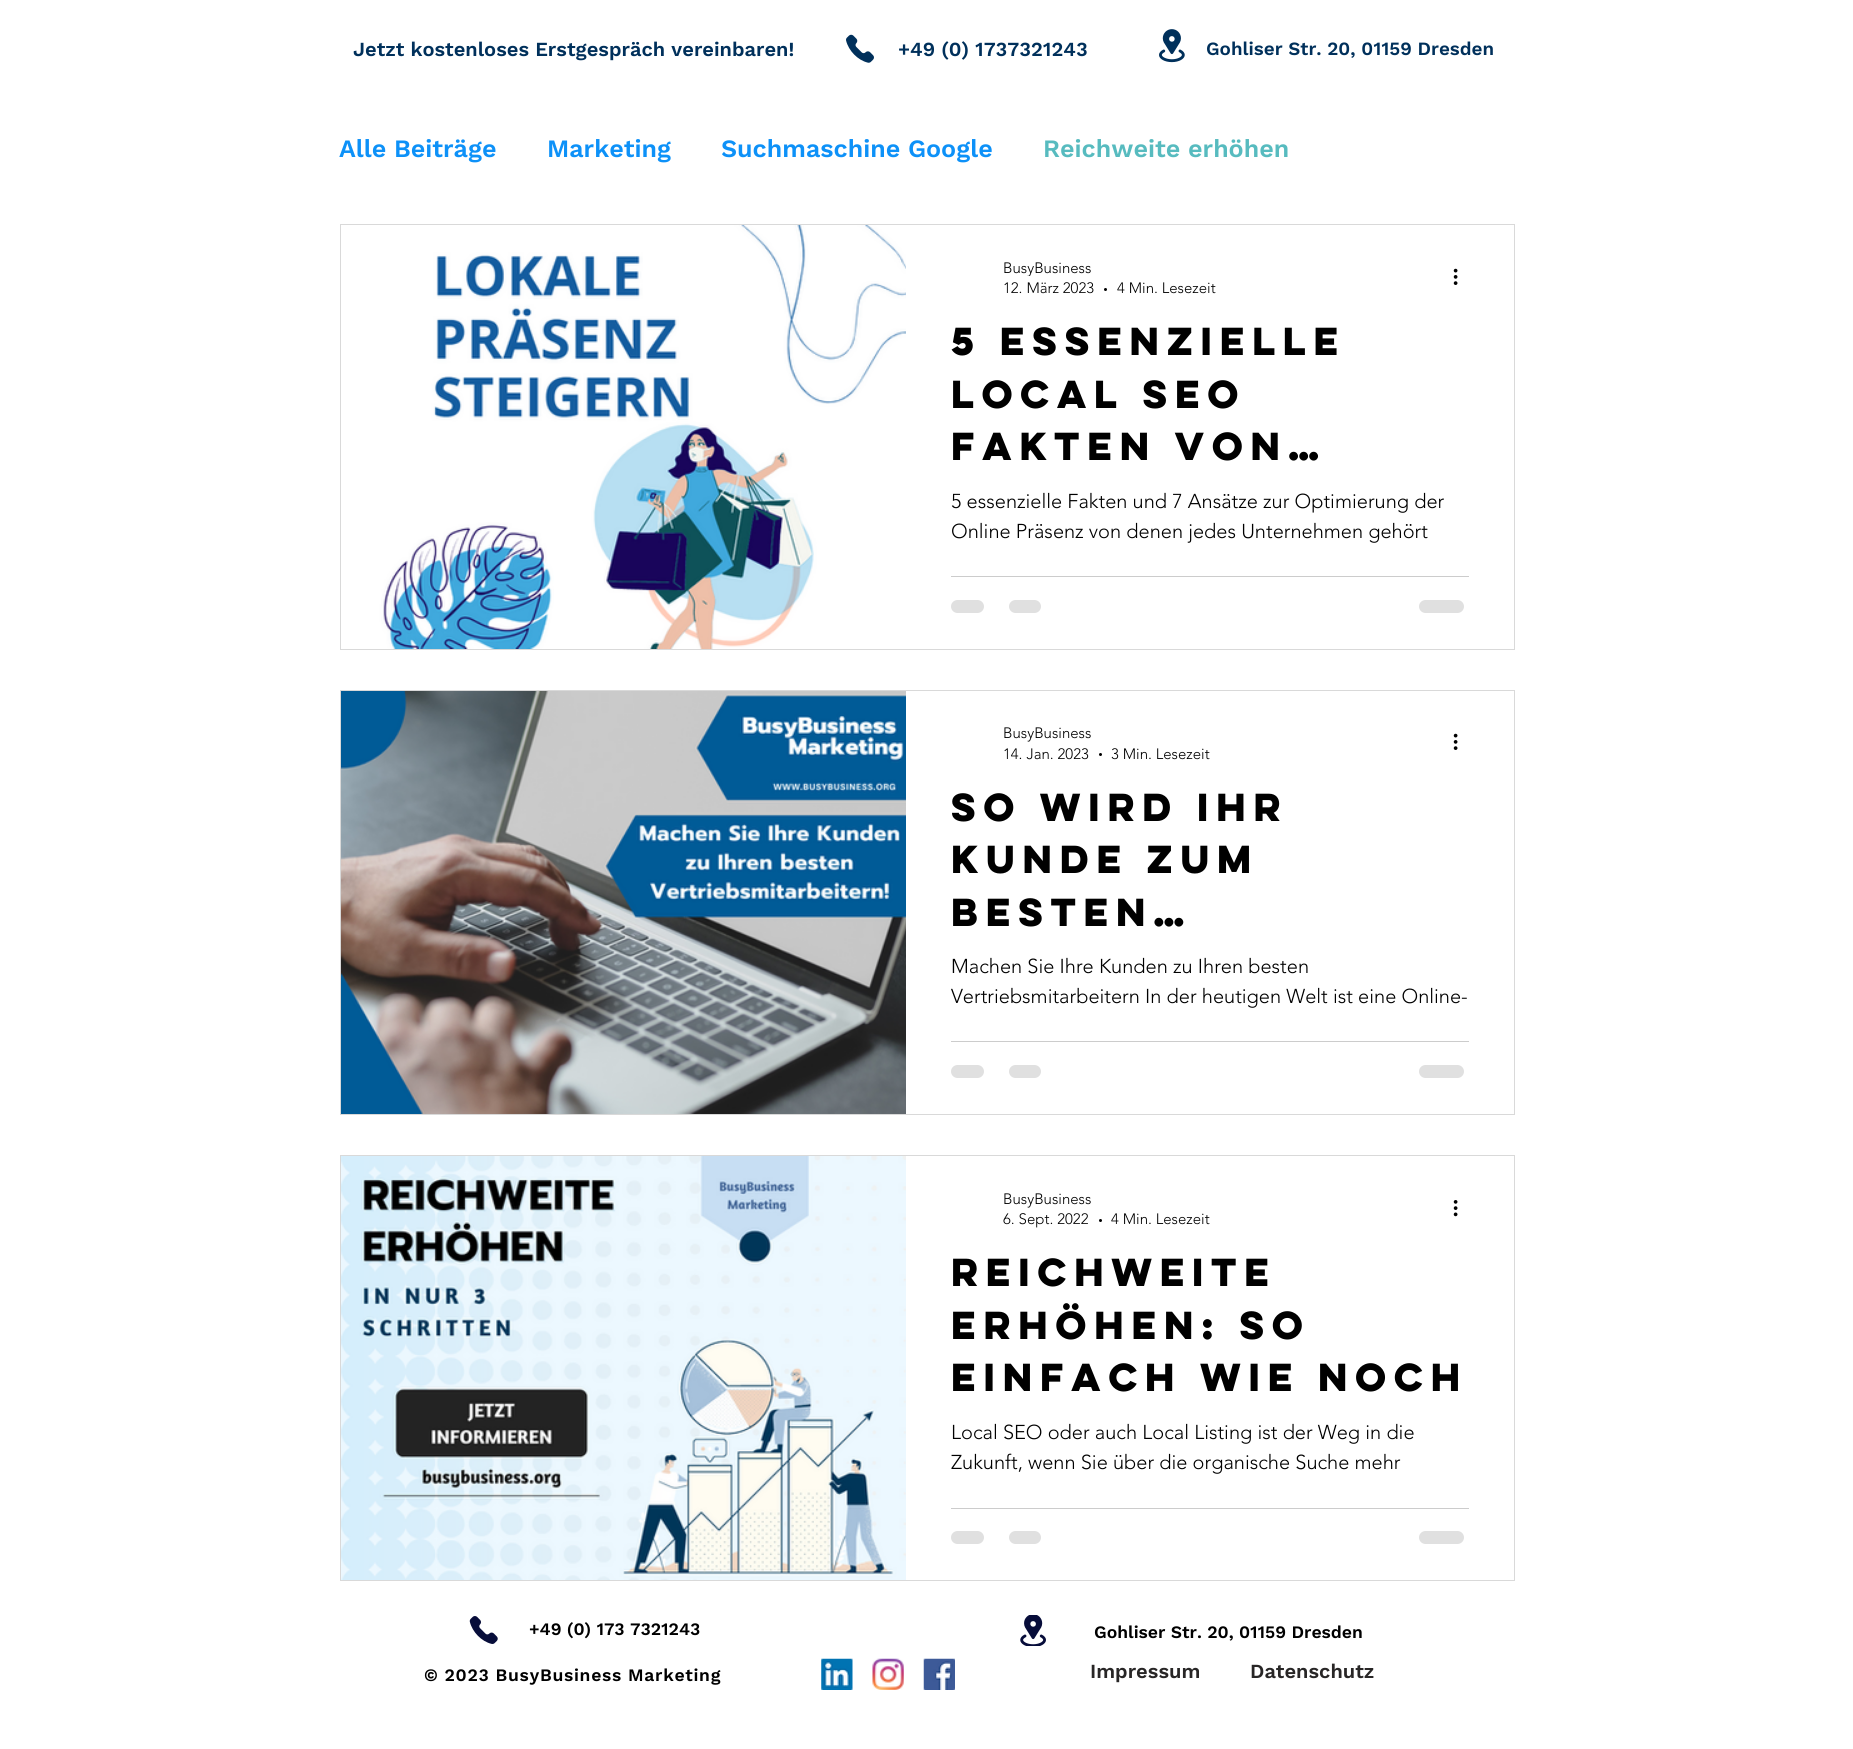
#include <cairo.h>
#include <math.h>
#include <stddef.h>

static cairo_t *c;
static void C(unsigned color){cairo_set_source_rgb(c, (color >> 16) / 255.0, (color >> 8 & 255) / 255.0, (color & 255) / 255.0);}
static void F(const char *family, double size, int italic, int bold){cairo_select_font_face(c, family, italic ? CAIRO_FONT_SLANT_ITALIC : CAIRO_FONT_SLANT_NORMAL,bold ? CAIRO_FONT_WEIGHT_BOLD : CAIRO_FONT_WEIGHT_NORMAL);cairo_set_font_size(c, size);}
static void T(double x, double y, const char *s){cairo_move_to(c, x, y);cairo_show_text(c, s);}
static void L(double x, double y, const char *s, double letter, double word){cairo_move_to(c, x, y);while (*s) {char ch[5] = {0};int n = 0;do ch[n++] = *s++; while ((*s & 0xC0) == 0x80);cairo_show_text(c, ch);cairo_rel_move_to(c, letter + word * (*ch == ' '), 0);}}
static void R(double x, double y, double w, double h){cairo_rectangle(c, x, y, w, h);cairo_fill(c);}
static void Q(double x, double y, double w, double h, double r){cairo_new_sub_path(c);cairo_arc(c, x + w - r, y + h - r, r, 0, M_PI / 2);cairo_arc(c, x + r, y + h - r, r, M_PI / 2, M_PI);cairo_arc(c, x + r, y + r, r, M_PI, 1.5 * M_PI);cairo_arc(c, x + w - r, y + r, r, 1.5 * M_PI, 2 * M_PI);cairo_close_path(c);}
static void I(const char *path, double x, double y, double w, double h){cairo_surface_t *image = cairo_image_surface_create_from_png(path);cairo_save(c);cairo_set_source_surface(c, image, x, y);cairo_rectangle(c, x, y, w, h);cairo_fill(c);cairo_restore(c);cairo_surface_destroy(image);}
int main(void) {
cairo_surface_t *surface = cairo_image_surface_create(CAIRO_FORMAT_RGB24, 1853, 1749);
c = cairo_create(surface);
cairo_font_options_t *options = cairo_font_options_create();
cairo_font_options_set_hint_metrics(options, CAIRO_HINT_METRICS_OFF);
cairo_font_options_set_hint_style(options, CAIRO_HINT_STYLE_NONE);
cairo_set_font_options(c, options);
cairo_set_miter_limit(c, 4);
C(0xffffff);
cairo_paint(c);
F("Work Sans SemiBold",20,0,0);
C(0x00305b);
T(353,56,"Jetzt kostenloses Erstgespräch vereinbaren!");
I("1.png",846,34,28,29);
T(898,56,"+49 (0) 1737321243");
I("2.png",1159,29,26,34);
F("Work Sans SemiBold",18.75,0,0);
T(1206,55,"Gohliser Str. 20, 01159 Dresden");
F("Work Sans SemiBold",25,0,0);
C(0x0d91f8);
T(339,157,"Alle Beiträge");
T(547,157,"Marketing");
T(721,157,"Suchmaschine Google");
C(0x57bbbf);
T(1043,157,"Reichweite erhöhen");
cairo_rectangle(c,340.5,224.5,1174,425);
C(0xd9d9d9);
cairo_set_line_width(c,1);
cairo_stroke(c);
I("3.png",341,225,565,424);
cairo_save(c);
cairo_rectangle(c,1004,259,87,17);
cairo_clip(c);
F("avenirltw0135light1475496 Light",15,0,0);
C(0x000000);
T(1003,273,"BusyBusiness");
cairo_restore(c);
F("avenirltw0135light1475496 Light",15,0,0);
C(0x000000);
T(1003,293,"12. März 2023");
cairo_new_path(c);
cairo_arc(c,1105.5,289.5,1.5,0,2 * M_PI);
cairo_fill(c);
T(1117,293,"4 Min. Lesezeit");
I("4.png",1453,268,5,17);
F("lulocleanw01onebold",35,0,1);
T(951,355,"5 essenzielle");
T(951,408,"Local SEO");
T(951,460,"Fakten von…");
F("avenirltw0135light1475496 Light",20,0,0);
T(951,508,"5 essenzielle Fakten und 7 Ansätze zur Optimierung der");
T(951,538,"Online Präsenz von denen jedes Unternehmen gehört");
C(0xcccccc);
R(951,576,518,1);
C(0xe0e0e0);
Q(951,600,33,13,6.5);
cairo_fill(c);
Q(1009,600,32,13,6.5);
cairo_fill(c);
Q(1419,600,45,13,6.5);
cairo_fill(c);
cairo_rectangle(c,340.5,690.5,1174,424);
C(0xd9d9d9);
cairo_stroke(c);
I("5.png",341,691,565,423);
F("avenirltw0135light1475496 Light",15,0,0);
C(0x000000);
T(1003,738,"BusyBusiness");
T(1003,759,"14. Jan. 2023");
cairo_new_path(c);
cairo_arc(c,1100.5,754.5,1.5,0,2 * M_PI);
cairo_fill(c);
T(1111,759,"3 Min. Lesezeit");
I("4.png",1453,733,5,17);
F("lulocleanw01onebold",35,0,1);
T(951,821,"So wird ihr");
T(951,873,"Kunde zum");
T(951,926,"besten…");
F("avenirltw0135light1475496 Light",20,0,0);
T(951,973,"Machen Sie Ihre Kunden zu Ihren besten");
T(951,1003,"Vertriebsmitarbeitern In der heutigen Welt ist eine Online-");
C(0xcccccc);
R(951,1041,518,1);
C(0xe0e0e0);
Q(951,1065,33,13,6.5);
cairo_fill(c);
Q(1009,1065,32,13,6.5);
cairo_fill(c);
Q(1419,1065,45,13,6.5);
cairo_fill(c);
cairo_rectangle(c,340.5,1155.5,1174,425);
C(0xd9d9d9);
cairo_stroke(c);
I("6.png",341,1156,565,424);
F("avenirltw0135light1475496 Light",15,0,0);
C(0x000000);
T(1003,1204,"BusyBusiness");
T(1003,1224,"6. Sept. 2022");
cairo_new_path(c);
cairo_arc(c,1100.5,1220.5,1.5,0,2 * M_PI);
cairo_fill(c);
T(1111,1224,"4 Min. Lesezeit");
I("7.png",1453,1200,5,17);
F("lulocleanw01onebold",35,0,1);
T(951,1286,"Reichweite");
T(951,1339,"erhöhen: So");
T(951,1391,"einfach wie noch");
F("avenirltw0135light1475496 Light",20,0,0);
T(951,1439,"Local SEO oder auch Local Listing ist der Weg in die");
T(951,1469,"Zukunft, wenn Sie über die organische Suche mehr");
C(0xcccccc);
R(951,1508,518,1);
C(0xe0e0e0);
Q(951,1531,33,13,6.5);
cairo_fill(c);
Q(1009,1531,32,13,6.5);
cairo_fill(c);
Q(1419,1531,45,13,6.5);
cairo_fill(c);
I("8.png",469,1616,29,28);
I("9.png",1020,1615,26,31);
F("Work Sans SemiBold",17.5,0,0);
C(0x000000);
T(529,1635,"+49 (0) 173 7321243");
T(1094,1638,"Gohliser Str. 20, 01159 Dresden");
L(424,1681,"© 2023 BusyBusiness Marketing",.7,0);
I("10.png",821,1658,32,32);
I("11.png",872,1658,32,32);
I("12.png",923,1658,32,32);
F("Work Sans SemiBold",20,0,0);
C(0x282626);
T(1090,1678,"Impressum");
T(1250,1678,"Datenschutz");
cairo_surface_write_to_png(surface, "o.png");
cairo_font_options_destroy(options);
cairo_destroy(c);
cairo_surface_destroy(surface);
return 0;
}
